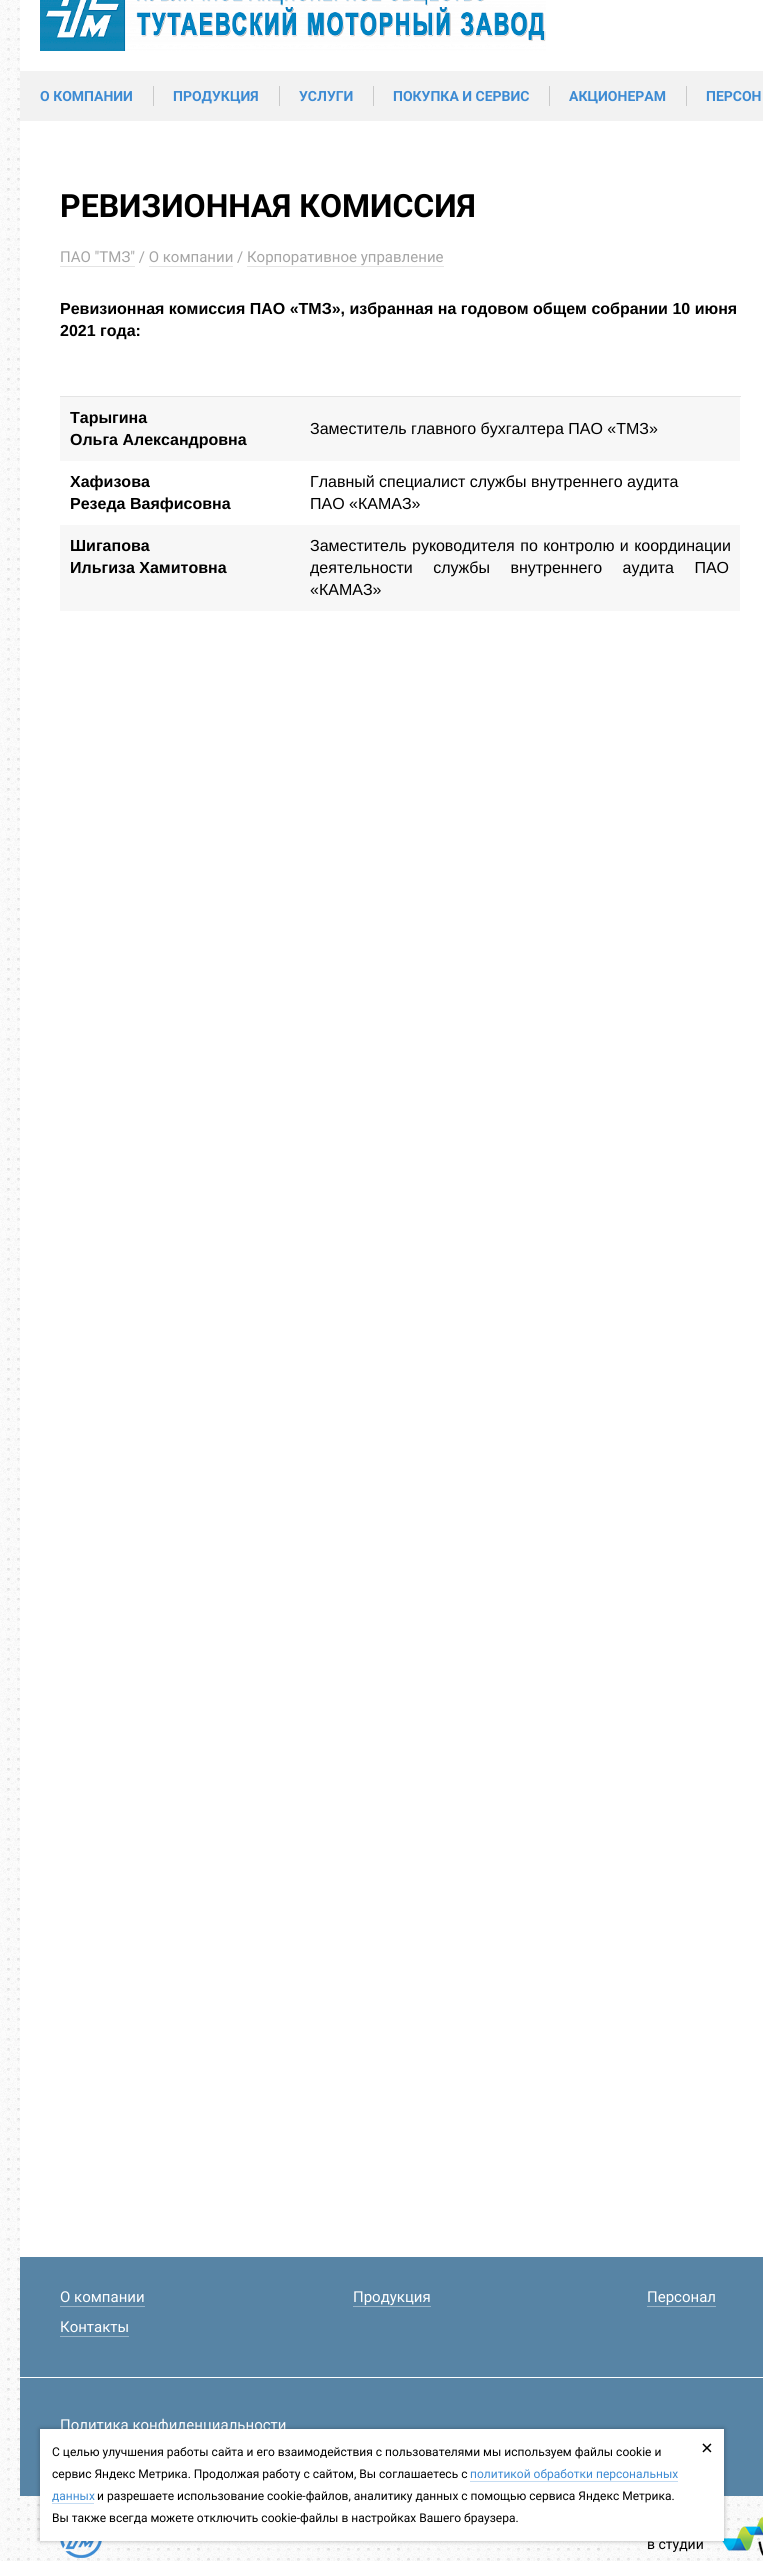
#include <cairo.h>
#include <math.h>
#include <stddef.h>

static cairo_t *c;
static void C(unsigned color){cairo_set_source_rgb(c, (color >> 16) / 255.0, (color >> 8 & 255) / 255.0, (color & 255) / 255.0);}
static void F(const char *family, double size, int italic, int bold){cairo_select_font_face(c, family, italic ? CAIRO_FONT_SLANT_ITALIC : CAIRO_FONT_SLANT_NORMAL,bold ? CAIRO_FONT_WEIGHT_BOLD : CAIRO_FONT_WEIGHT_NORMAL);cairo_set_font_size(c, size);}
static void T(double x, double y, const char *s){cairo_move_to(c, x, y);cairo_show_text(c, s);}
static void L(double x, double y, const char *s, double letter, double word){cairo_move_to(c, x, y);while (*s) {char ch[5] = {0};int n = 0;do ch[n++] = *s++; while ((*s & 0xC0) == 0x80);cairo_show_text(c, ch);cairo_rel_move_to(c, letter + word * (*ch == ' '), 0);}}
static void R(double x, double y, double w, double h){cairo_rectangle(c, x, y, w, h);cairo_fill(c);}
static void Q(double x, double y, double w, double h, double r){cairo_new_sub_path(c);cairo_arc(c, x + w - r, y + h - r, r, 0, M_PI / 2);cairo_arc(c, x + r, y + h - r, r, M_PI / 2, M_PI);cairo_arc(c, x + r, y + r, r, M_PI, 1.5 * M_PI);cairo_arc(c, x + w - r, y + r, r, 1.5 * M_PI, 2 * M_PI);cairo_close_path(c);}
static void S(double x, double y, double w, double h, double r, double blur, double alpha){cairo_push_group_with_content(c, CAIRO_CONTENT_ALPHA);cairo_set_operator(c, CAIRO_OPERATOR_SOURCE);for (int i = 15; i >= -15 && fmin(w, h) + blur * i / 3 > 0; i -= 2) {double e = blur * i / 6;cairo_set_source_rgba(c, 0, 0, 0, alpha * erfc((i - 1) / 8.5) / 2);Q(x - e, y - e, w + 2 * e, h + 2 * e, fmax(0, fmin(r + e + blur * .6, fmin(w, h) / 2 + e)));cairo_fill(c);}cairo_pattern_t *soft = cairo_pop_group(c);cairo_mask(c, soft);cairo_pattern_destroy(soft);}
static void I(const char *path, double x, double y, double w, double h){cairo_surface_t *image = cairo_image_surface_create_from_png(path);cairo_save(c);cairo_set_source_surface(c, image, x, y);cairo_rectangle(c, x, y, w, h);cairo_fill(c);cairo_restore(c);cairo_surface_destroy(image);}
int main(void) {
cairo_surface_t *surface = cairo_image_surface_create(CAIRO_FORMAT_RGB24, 763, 2561);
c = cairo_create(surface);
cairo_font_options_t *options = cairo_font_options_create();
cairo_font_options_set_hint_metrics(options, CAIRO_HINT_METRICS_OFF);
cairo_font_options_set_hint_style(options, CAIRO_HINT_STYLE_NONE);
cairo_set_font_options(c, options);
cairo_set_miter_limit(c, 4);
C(0xffffff);
cairo_paint(c);
I("1.png",0,0,763,2561);
C(0xffffff);
R(20,0,743,2257);
I("2.png",40,0,506,51);
C(0xf2f2f2);
R(20,71,743,50);
F("Roboto",14,0,1);
C(0x3d8bd3);
T(40,101,"О КОМПАНИИ");
C(0xcacaca);
R(153,86,1,20);
C(0x3d8bd3);
T(173,101,"ПРОДУКЦИЯ");
C(0xcacaca);
R(279,86,1,20);
C(0x3d8bd3);
T(299,101,"УСЛУГИ");
C(0xcacaca);
R(373,86,1,20);
C(0x3d8bd3);
T(393,101,"ПОКУПКА И СЕРВИС");
C(0xcacaca);
R(549,86,1,20);
C(0x3d8bd3);
T(569,101,"АКЦИОНЕРАМ");
C(0xcacaca);
R(686,86,1,20);
C(0x3d8bd3);
T(706,101,"ПЕРСОН");
F("Roboto",32,0,1);
C(0x000000);
T(60,217,"РЕВИЗИОННАЯ КОМИССИЯ");
F("Roboto",15,0,0);
C(0xa5a5a5);
T(60,262,"ПАО \"ТМЗ\" / О компании / Корпоративное управление");
C(0xe4e4e4);
R(60,266,75,1);
R(149,266,84,1);
R(247,266,197,1);
F("Liberation Sans",16,0,1);
C(0x000000);
T(60,314,"Ревизионная комиссия ПАО «ТМЗ», избранная на годовом общем собрании 10 июня");
T(60,336,"2021 года:");
C(0xe4e4e4);
R(60,396,681,1);
C(0xf7f7f7);
R(60,397,680,64);
C(0x000000);
T(70,423,"Тарыгина");
T(70,445,"Ольга Александровна");
F("Liberation Sans",16,0,0);
T(310,434,"Заместитель главного бухгалтера ПАО «ТМЗ»");
F("Liberation Sans",16,0,1);
T(70,487,"Хафизова");
T(70,509,"Резеда Ваяфисовна");
F("Liberation Sans",16,0,0);
T(310,487,"Главный специалист службы внутреннего аудита");
T(310,509,"ПАО «КАМАЗ»");
C(0xf7f7f7);
R(60,525,680,86);
F("Liberation Sans",16,0,1);
C(0x000000);
T(70,551,"Шигапова");
T(70,573,"Ильгиза Хамитовна");
F("Liberation Sans",16,0,0);
L(310,551,"Заместитель руководителя по контролю и координации",0,1);
L(310,573,"деятельности службы внутреннего аудита ПАО",0,16);
T(310,595,"«КАМАЗ»");
I("3.png",20,2496,743,16);
C(0x5784a5);
R(20,2257,743,120);
C(0xffffff);
R(20,2377,743,1);
F("Roboto",15,0,0);
T(60,2302,"О компании");
C(0x9ab5c9);
R(60,2306,85,1);
C(0xffffff);
T(353,2302,"Продукция");
C(0x9ab5c9);
R(353,2306,78,1);
C(0xffffff);
T(647,2302,"Персонал");
C(0x9ab5c9);
R(647,2306,69,1);
C(0xffffff);
T(60,2332,"Контакты");
C(0x9ab5c9);
R(60,2336,69,1);
C(0x5784a5);
R(20,2378,743,118);
C(0xffffff);
T(60,2430,"Политика конфиденциальности");
I("4.png",60,2541,42,17);
F("Roboto",14,0,0);
C(0x000000);
T(647,2549,"в студии");
I("5.png",722,2517,41,39);
C(0x000000);
S(40,2429,684,112,0,2.5,.3);
C(0xffffff);
R(40,2429,684,112);
F("Roboto",12,0,0);
C(0x000000);
T(52,2456,"С целью улучшения работы сайта и его взаимодействия с пользователями мы используем файлы cookie и");
T(52,2478,"сервис Яндекс Метрика. Продолжая работу с сайтом, Вы соглашаетесь с");
C(0x3d8bd3);
T(470,2478,"политикой обработки персональных");
C(0xc5dcf2);
R(470,2481,208,1);
C(0x3d8bd3);
T(52,2500,"данных");
C(0xc5dcf2);
R(52,2503,42,1);
C(0x000000);
T(97,2500,"и разрешаете использование cookie-файлов, аналитику данных с помощью сервиса Яндекс Метрика.");
T(52,2522,"Вы также всегда можете отключить cookie-файлы в настройках Вашего браузера.");
I("6.png",702,2443,10,10);
cairo_surface_write_to_png(surface, "o.png");
cairo_font_options_destroy(options);
cairo_destroy(c);
cairo_surface_destroy(surface);
return 0;
}
